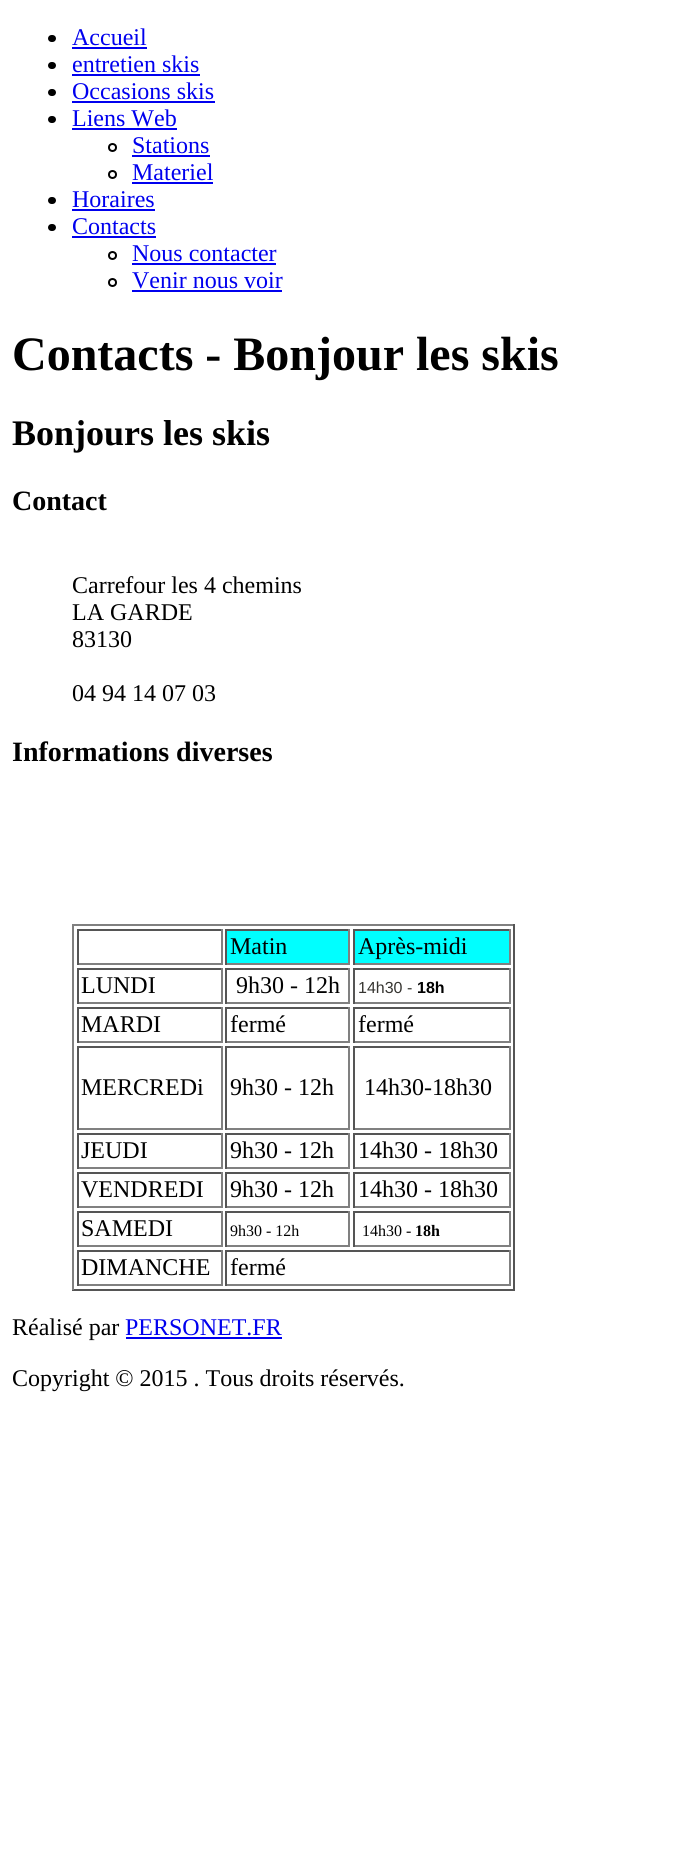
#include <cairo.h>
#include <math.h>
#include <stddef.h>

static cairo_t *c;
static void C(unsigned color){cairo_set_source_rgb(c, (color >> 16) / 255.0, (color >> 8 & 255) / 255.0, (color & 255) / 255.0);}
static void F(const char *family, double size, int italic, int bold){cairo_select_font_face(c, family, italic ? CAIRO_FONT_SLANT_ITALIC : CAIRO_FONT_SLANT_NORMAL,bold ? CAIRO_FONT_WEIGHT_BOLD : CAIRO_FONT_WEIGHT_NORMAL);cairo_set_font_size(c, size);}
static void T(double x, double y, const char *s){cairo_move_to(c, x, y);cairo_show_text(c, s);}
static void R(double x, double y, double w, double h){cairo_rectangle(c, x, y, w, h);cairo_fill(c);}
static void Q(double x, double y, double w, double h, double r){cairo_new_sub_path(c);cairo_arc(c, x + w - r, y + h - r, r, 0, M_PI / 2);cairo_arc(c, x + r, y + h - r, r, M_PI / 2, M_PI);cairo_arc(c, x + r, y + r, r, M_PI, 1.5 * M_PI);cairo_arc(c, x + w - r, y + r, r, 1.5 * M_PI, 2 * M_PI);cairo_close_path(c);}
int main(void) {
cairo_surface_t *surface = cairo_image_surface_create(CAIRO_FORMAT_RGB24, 700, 1859);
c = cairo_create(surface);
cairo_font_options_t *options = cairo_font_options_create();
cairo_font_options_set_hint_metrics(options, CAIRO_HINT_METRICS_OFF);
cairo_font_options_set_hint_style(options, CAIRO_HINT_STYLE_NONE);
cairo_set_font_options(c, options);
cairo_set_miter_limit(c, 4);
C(0xffffff);
cairo_paint(c);
C(0x000000);
Q(48,35,8,7,3.5);
cairo_fill(c);
F("Liberation Serif",24,0,0);
C(0x0000ee);
T(72,45,"Accueil");
R(72,47,75,2);
C(0x000000);
Q(48,62,8,7,3.5);
cairo_fill(c);
C(0x0000ee);
T(72,72,"entretien skis");
R(72,74,128,2);
C(0x000000);
Q(48,89,8,7,3.5);
cairo_fill(c);
C(0x0000ee);
T(72,99,"Occasions skis");
R(72,101,143,2);
C(0x000000);
Q(48,116,8,7,3.5);
cairo_fill(c);
C(0x0000ee);
T(72,126,"Liens Web");
R(72,128,105,2);
cairo_new_path(c);
cairo_arc(c,112.5,147.5,3.5,0,2 * M_PI);
C(0x000000);
cairo_stroke(c);
C(0x0000ee);
T(132,153,"Stations");
R(132,155,78,2);
cairo_new_path(c);
cairo_arc(c,112.5,174.5,3.5,0,2 * M_PI);
C(0x000000);
cairo_stroke(c);
C(0x0000ee);
T(132,180,"Materiel");
R(132,182,81,2);
C(0x000000);
Q(48,197,8,7,3.5);
cairo_fill(c);
C(0x0000ee);
T(72,207,"Horaires");
R(72,209,83,2);
C(0x000000);
Q(48,224,8,7,3.5);
cairo_fill(c);
C(0x0000ee);
T(72,234,"Contacts");
R(72,236,84,2);
cairo_new_path(c);
cairo_arc(c,112.5,255.5,3.5,0,2 * M_PI);
C(0x000000);
cairo_stroke(c);
C(0x0000ee);
T(132,261,"Nous contacter");
R(132,263,144,2);
cairo_new_path(c);
cairo_arc(c,112.5,282.5,3.5,0,2 * M_PI);
C(0x000000);
cairo_stroke(c);
C(0x0000ee);
T(132,288,"Venir nous voir");
R(132,290,150,2);
F("Liberation Serif",48,0,1);
C(0x000000);
T(12,370,"Contacts - Bonjour les skis");
F("Liberation Serif",36,0,1);
T(12,445,"Bonjours les skis");
F("Liberation Serif",28,0,1);
T(12,510,"Contact");
F("Liberation Serif",24,0,0);
T(72,593,"Carrefour les 4 chemins");
T(72,620,"LA GARDE");
T(72,647,"83130");
T(72,701,"04 94 14 07 03");
F("Liberation Serif",28,0,1);
T(12,761,"Informations diverses");
C(0x808080);
R(72,924,443,2);
C(0x555555);
R(513,924,2,366);
R(72,1289,443,2);
C(0x808080);
R(72,924,2,366);
C(0x555555);
R(77,929,145,2);
C(0x808080);
R(221,929,2,36);
R(77,963,145,2);
C(0x555555);
R(77,929,2,36);
C(0x00ffff);
R(227,931,121,32);
C(0x555555);
R(225,929,125,2);
C(0x808080);
R(348,929,2,36);
R(225,963,125,2);
C(0x555555);
R(225,929,2,36);
F("Liberation Serif",24,0,0);
C(0x000000);
T(230,954,"Matin");
C(0x00ffff);
R(355,931,154,32);
C(0x555555);
R(353,929,157,2);
C(0x808080);
R(509,929,2,36);
R(353,963,157,2);
C(0x555555);
R(353,929,2,36);
C(0x000000);
T(358,954,"Après-midi");
C(0x555555);
R(77,968,145,2);
C(0x808080);
R(221,968,2,36);
R(77,1002,145,2);
C(0x555555);
R(77,968,2,36);
C(0x000000);
T(81,993,"LUNDI");
C(0x555555);
R(225,968,125,2);
C(0x808080);
R(348,968,2,36);
R(225,1002,125,2);
C(0x555555);
R(225,968,2,36);
C(0x000000);
T(236,993,"9h30 - 12h");
C(0x555555);
R(353,968,157,2);
C(0x808080);
R(509,968,2,36);
R(353,1002,157,2);
C(0x555555);
R(353,968,2,36);
F("Liberation Sans",16,0,0);
C(0x363531);
T(358,993,"14h30 -");
F("Liberation Sans",16,0,1);
C(0x000000);
T(417,993,"18h");
C(0x555555);
R(77,1007,145,2);
C(0x808080);
R(221,1007,2,36);
R(77,1041,145,2);
C(0x555555);
R(77,1007,2,36);
F("Liberation Serif",24,0,0);
C(0x000000);
T(81,1032,"MARDI");
C(0x555555);
R(225,1007,125,2);
C(0x808080);
R(348,1007,2,36);
R(225,1041,125,2);
C(0x555555);
R(225,1007,2,36);
C(0x000000);
T(230,1032,"fermé");
C(0x555555);
R(353,1007,157,2);
C(0x808080);
R(509,1007,2,36);
R(353,1041,157,2);
C(0x555555);
R(353,1007,2,36);
C(0x000000);
T(358,1032,"fermé");
C(0x555555);
R(77,1046,145,2);
C(0x808080);
R(221,1046,2,84);
R(77,1128,145,2);
C(0x555555);
R(77,1046,2,84);
C(0x000000);
T(81,1095,"MERCREDi");
C(0x555555);
R(225,1046,125,2);
C(0x808080);
R(348,1046,2,84);
R(225,1128,125,2);
C(0x555555);
R(225,1046,2,84);
C(0x000000);
T(230,1095,"9h30 - 12h");
C(0x555555);
R(353,1046,157,2);
C(0x808080);
R(509,1046,2,84);
R(353,1128,157,2);
C(0x555555);
R(353,1046,2,84);
C(0x000000);
T(364,1095,"14h30-18h30");
C(0x555555);
R(77,1133,145,2);
C(0x808080);
R(221,1133,2,36);
R(77,1167,145,2);
C(0x555555);
R(77,1133,2,36);
C(0x000000);
T(81,1158,"JEUDI");
C(0x555555);
R(225,1133,125,2);
C(0x808080);
R(348,1133,2,36);
R(225,1167,125,2);
C(0x555555);
R(225,1133,2,36);
C(0x000000);
T(230,1158,"9h30 - 12h");
C(0x555555);
R(353,1133,157,2);
C(0x808080);
R(509,1133,2,36);
R(353,1167,157,2);
C(0x555555);
R(353,1133,2,36);
C(0x000000);
T(358,1158,"14h30 - 18h30");
C(0x555555);
R(77,1172,145,2);
C(0x808080);
R(221,1172,2,36);
R(77,1206,145,2);
C(0x555555);
R(77,1172,2,36);
C(0x000000);
T(81,1197,"VENDREDI");
C(0x555555);
R(225,1172,125,2);
C(0x808080);
R(348,1172,2,36);
R(225,1206,125,2);
C(0x555555);
R(225,1172,2,36);
C(0x000000);
T(230,1197,"9h30 - 12h");
C(0x555555);
R(353,1172,157,2);
C(0x808080);
R(509,1172,2,36);
R(353,1206,157,2);
C(0x555555);
R(353,1172,2,36);
C(0x000000);
T(358,1197,"14h30 - 18h30");
C(0x555555);
R(77,1211,145,2);
C(0x808080);
R(221,1211,2,36);
R(77,1245,145,2);
C(0x555555);
R(77,1211,2,36);
C(0x000000);
T(81,1236,"SAMEDI");
C(0x555555);
R(225,1211,125,2);
C(0x808080);
R(348,1211,2,36);
R(225,1245,125,2);
C(0x555555);
R(225,1211,2,36);
F("Liberation Serif",16,0,0);
C(0x000000);
T(230,1236,"9h30 - 12h");
C(0x555555);
R(353,1211,157,2);
C(0x808080);
R(509,1211,2,36);
R(353,1245,157,2);
C(0x555555);
R(353,1211,2,36);
C(0x000000);
T(362,1236,"14h30 -");
F("Liberation Serif",16,0,1);
T(415,1236,"18h");
C(0x555555);
R(77,1250,145,2);
C(0x808080);
R(221,1250,2,36);
R(77,1284,145,2);
C(0x555555);
R(77,1250,2,36);
F("Liberation Serif",24,0,0);
C(0x000000);
T(81,1275,"DIMANCHE");
C(0x555555);
R(225,1250,285,2);
C(0x808080);
R(509,1250,2,36);
R(225,1284,285,2);
C(0x555555);
R(225,1250,2,36);
C(0x000000);
T(230,1275,"fermé");
T(12,1335,"Réalisé par");
C(0x0000ee);
T(125,1335,"PERSONET.FR");
R(126,1337,156,2);
C(0x000000);
T(12,1386,"Copyright © 2015 . Tous droits réservés.");
cairo_surface_write_to_png(surface, "o.png");
cairo_font_options_destroy(options);
cairo_destroy(c);
cairo_surface_destroy(surface);
return 0;
}
